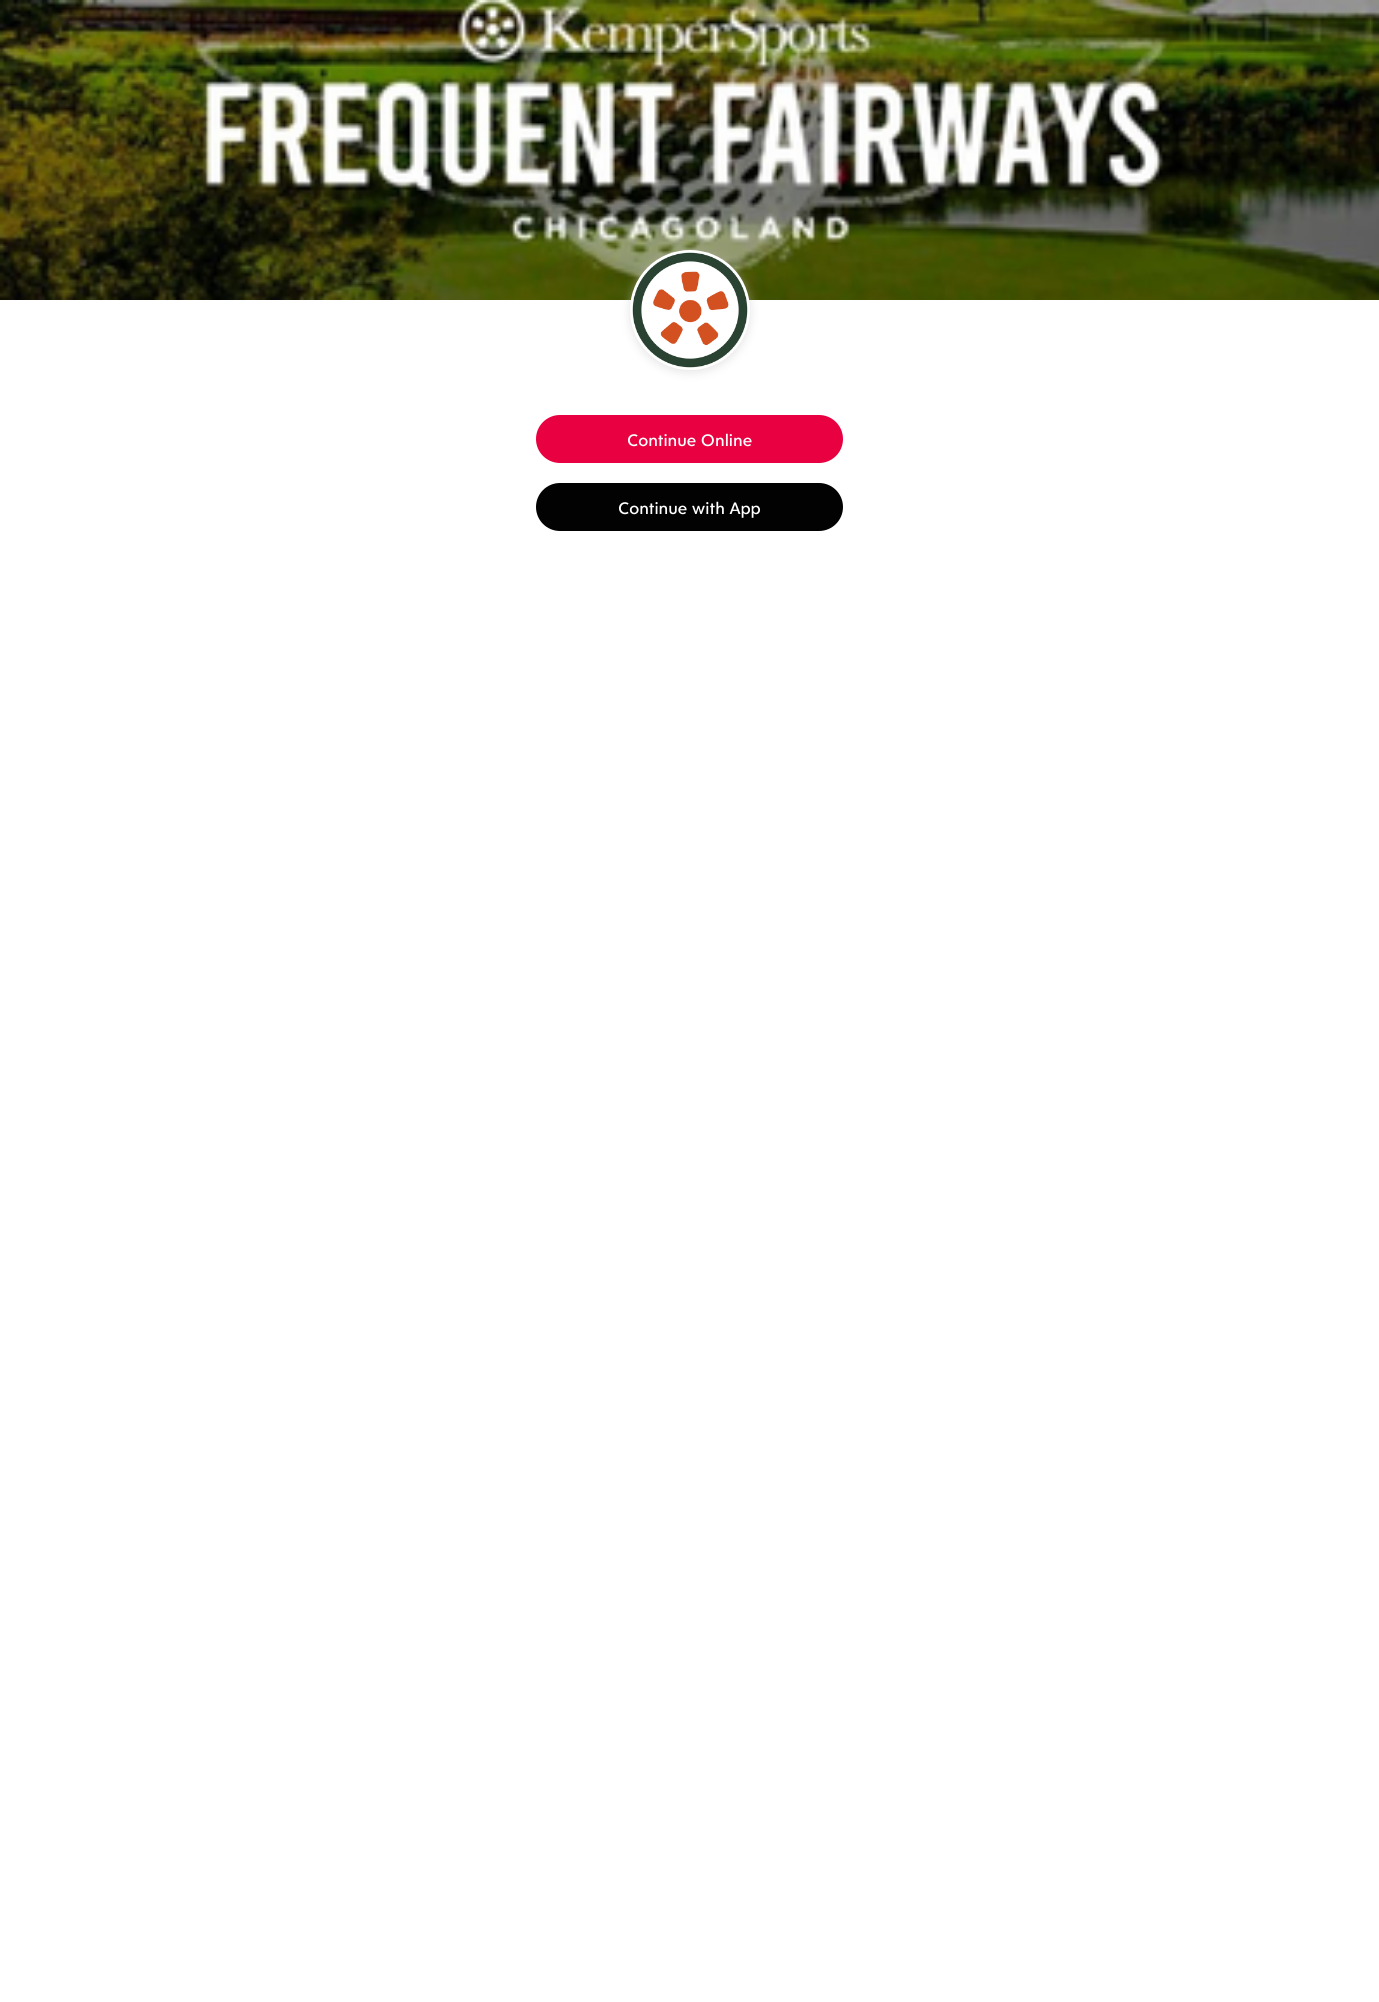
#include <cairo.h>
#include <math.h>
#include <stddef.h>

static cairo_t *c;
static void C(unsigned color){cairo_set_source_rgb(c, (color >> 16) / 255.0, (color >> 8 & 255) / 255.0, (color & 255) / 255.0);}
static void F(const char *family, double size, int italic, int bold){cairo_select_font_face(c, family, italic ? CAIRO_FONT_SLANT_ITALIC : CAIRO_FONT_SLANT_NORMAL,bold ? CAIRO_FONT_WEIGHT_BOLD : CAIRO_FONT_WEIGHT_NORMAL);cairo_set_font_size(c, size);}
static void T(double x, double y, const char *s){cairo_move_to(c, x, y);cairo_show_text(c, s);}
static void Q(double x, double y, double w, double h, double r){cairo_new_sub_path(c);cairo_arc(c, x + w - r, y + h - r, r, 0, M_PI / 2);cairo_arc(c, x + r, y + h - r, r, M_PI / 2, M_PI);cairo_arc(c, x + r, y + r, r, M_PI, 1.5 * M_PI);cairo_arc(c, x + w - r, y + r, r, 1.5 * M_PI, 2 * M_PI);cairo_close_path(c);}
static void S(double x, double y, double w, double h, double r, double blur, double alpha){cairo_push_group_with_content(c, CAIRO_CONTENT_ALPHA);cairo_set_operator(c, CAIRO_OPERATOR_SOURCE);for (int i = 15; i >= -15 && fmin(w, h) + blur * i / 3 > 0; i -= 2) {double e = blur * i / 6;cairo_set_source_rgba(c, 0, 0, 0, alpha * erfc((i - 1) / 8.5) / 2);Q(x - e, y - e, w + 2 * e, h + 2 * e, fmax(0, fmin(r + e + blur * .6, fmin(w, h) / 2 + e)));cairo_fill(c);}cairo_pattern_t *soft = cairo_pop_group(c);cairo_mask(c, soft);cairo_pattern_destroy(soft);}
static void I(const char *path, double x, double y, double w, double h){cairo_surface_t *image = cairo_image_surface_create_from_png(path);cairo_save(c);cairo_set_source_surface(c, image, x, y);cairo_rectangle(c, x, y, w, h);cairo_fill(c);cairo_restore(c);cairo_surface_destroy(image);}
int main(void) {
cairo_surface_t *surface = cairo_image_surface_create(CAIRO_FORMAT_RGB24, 1379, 2002);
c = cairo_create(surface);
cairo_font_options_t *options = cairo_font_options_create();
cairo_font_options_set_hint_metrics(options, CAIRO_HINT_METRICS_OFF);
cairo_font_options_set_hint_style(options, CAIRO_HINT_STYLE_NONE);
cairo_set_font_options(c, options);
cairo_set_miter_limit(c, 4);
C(0xffffff);
cairo_paint(c);
I("1.png",0,0,1379,300);
C(0xc7c7c7);
S(630,252,120,120,60,5,.5);
I("2.png",630,250,120,120);
C(0xe90041);
Q(536,415,307,48,24);
cairo_fill(c);
F("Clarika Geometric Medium",18,0,0);
C(0xffffff);
T(627,446,"Continue Online");
C(0x020202);
Q(536,483,307,48,24);
cairo_fill(c);
C(0xffffff);
T(618,514,"Continue with App");
cairo_surface_write_to_png(surface, "o.png");
cairo_font_options_destroy(options);
cairo_destroy(c);
cairo_surface_destroy(surface);
return 0;
}
